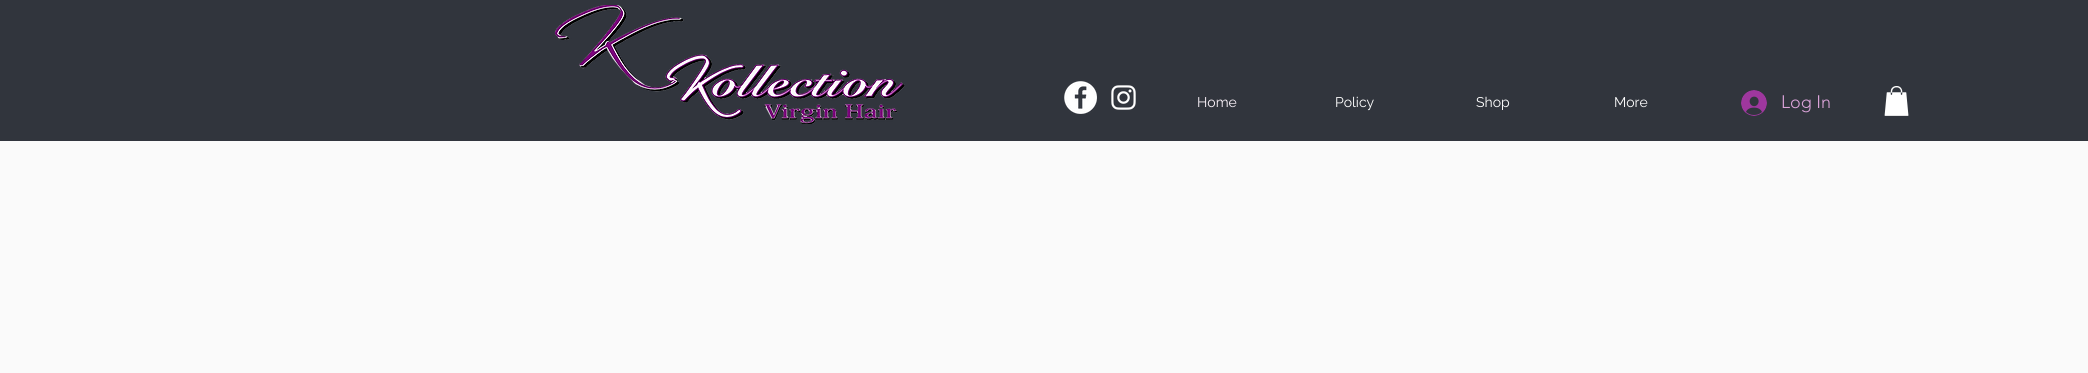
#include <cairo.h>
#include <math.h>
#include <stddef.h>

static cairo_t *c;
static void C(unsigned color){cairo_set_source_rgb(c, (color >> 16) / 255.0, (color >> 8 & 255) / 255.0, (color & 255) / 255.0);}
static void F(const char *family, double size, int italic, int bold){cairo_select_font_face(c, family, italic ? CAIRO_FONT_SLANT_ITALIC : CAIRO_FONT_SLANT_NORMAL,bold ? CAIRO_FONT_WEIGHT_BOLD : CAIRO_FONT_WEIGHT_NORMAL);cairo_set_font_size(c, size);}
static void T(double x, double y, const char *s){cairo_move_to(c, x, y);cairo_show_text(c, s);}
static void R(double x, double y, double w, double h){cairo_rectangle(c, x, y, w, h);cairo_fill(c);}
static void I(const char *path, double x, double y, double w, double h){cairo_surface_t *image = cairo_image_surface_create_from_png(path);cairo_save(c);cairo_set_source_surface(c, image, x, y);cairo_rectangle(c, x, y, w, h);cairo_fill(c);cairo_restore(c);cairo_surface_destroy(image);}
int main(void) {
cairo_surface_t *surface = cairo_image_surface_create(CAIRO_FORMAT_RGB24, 2088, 373);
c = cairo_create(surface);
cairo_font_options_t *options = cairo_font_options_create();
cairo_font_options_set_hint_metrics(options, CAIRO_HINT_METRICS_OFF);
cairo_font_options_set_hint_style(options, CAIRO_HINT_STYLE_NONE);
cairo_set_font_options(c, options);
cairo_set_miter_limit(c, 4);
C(0xfafafa);
cairo_paint(c);
C(0x31353d);
R(0,0,2088,141);
I("1.png",554,5,351,119);
I("2.png",1064,81,33,33);
I("3.png",1111,85,25,25);
F("Raleway",14,0,0);
C(0xfcf4fb);
T(1197,107,"Home");
C(0xffffff);
T(1335,107,"Policy");
T(1476,107,"Shop");
T(1614,107,"More");
I("4.png",1741,90,26,26);
F("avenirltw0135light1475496 Light",18,0,0);
C(0xdca4da);
T(1781,108,"Log In");
I("5.png",1884,86,25,30);
cairo_surface_write_to_png(surface, "o.png");
cairo_font_options_destroy(options);
cairo_destroy(c);
cairo_surface_destroy(surface);
return 0;
}
